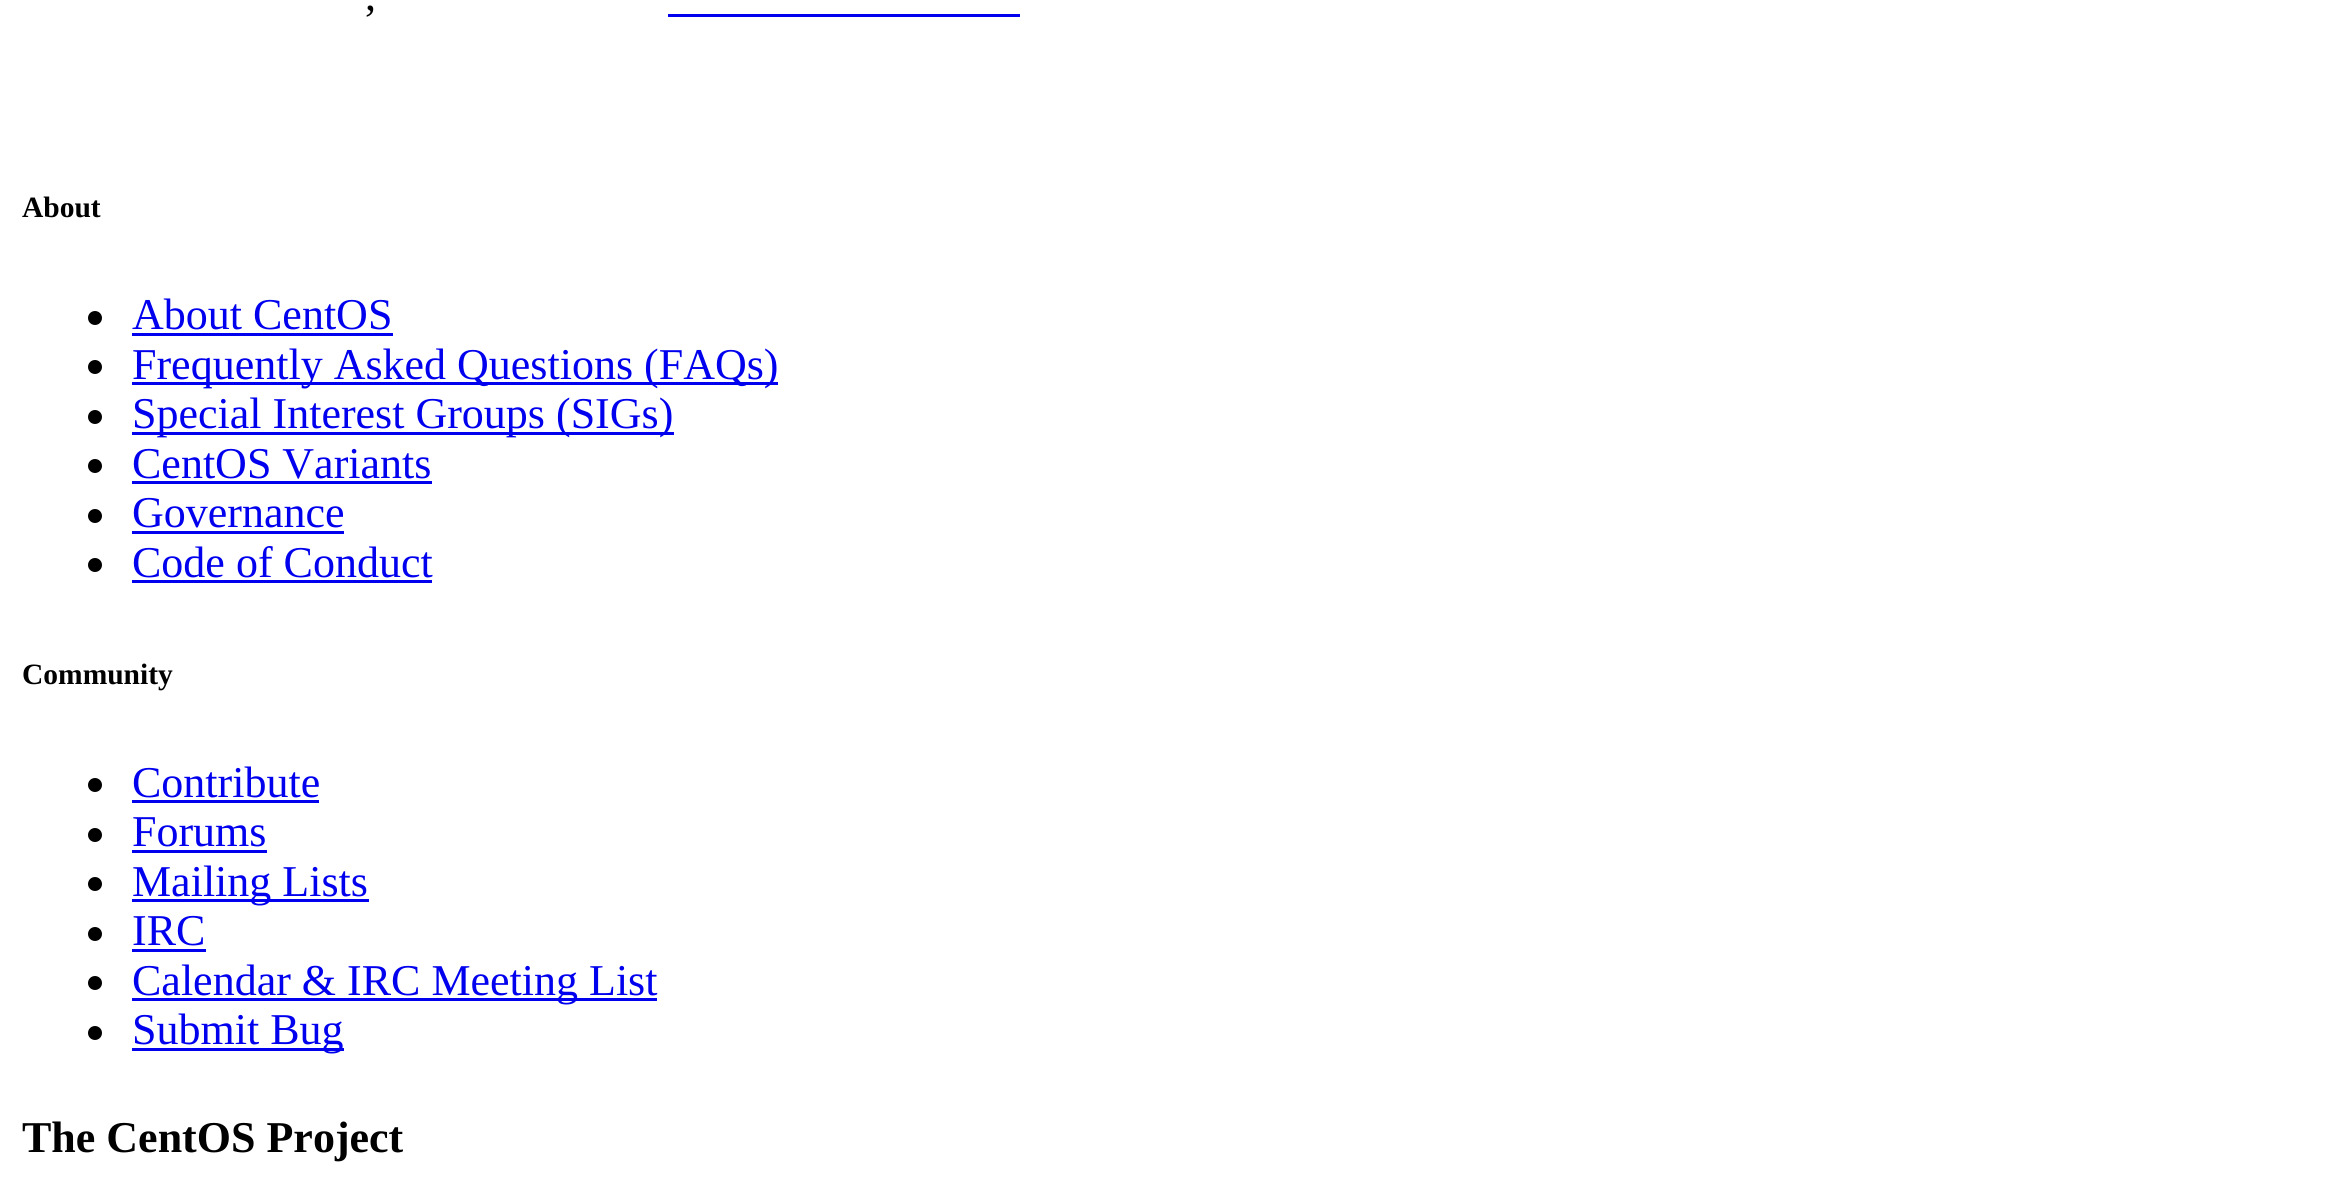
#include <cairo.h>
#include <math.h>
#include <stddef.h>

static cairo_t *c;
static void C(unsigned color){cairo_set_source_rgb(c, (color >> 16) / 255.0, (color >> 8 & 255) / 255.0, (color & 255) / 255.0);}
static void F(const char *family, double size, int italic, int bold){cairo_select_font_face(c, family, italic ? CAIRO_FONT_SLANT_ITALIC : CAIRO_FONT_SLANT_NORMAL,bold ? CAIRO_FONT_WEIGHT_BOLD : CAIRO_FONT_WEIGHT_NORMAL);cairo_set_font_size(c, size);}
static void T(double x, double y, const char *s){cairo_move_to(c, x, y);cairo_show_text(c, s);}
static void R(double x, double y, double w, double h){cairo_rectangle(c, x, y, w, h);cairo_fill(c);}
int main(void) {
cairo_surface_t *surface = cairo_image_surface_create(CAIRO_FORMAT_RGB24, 2326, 1179);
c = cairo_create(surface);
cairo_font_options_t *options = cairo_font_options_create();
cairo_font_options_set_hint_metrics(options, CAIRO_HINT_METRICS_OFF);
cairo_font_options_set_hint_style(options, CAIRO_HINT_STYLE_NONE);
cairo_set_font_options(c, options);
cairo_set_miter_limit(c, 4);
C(0xffffff);
cairo_paint(c);
F("Liberation Serif",44,0,0);
C(0x000000);
T(365,10,",");
C(0x0000ee);
R(668,14,352,3);
F("Liberation Serif",29.5,0,1);
C(0x000000);
T(22,217,"About");
cairo_new_path(c);
cairo_arc(c,95,318,7,0,2 * M_PI);
cairo_fill(c);
F("Liberation Serif",44,0,0);
C(0x0000ee);
T(132,329,"About CentOS");
R(132,333,261,3);
C(0x000000);
cairo_new_path(c);
cairo_arc(c,95,367,7,0,2 * M_PI);
cairo_fill(c);
C(0x0000ee);
R(132,382,646,3);
T(132,379,"Frequently Asked Questions (FAQs)");
C(0x000000);
cairo_new_path(c);
cairo_arc(c,95,417,7,0,2 * M_PI);
cairo_fill(c);
C(0x0000ee);
R(132,432,542,3);
T(132,428,"Special Interest Groups (SIGs)");
C(0x000000);
cairo_new_path(c);
cairo_arc(c,95,466,7,0,2 * M_PI);
cairo_fill(c);
C(0x0000ee);
T(132,478,"CentOS Variants");
R(132,481,300,3);
C(0x000000);
cairo_new_path(c);
cairo_arc(c,95,516,7,0,2 * M_PI);
cairo_fill(c);
C(0x0000ee);
T(132,527,"Governance");
R(132,531,212,3);
C(0x000000);
cairo_new_path(c);
cairo_arc(c,95,565,7,0,2 * M_PI);
cairo_fill(c);
C(0x0000ee);
T(132,577,"Code of Conduct");
R(132,580,300,3);
F("Liberation Serif",29.5,0,1);
C(0x000000);
T(22,684,"Community");
cairo_new_path(c);
cairo_arc(c,95,785,7,0,2 * M_PI);
cairo_fill(c);
F("Liberation Serif",44,0,0);
C(0x0000ee);
T(132,797,"Contribute");
R(132,800,187,3);
C(0x000000);
cairo_new_path(c);
cairo_arc(c,95,835,7,0,2 * M_PI);
cairo_fill(c);
C(0x0000ee);
T(132,846,"Forums");
R(132,850,135,3);
C(0x000000);
cairo_new_path(c);
cairo_arc(c,95,884,7,0,2 * M_PI);
cairo_fill(c);
C(0x0000ee);
R(132,899,237,3);
T(132,896,"Mailing Lists");
C(0x000000);
cairo_new_path(c);
cairo_arc(c,95,934,7,0,2 * M_PI);
cairo_fill(c);
C(0x0000ee);
T(132,945,"IRC");
R(132,949,74,3);
C(0x000000);
cairo_new_path(c);
cairo_arc(c,95,983,7,0,2 * M_PI);
cairo_fill(c);
C(0x0000ee);
R(132,998,525,3);
T(132,995,"Calendar & IRC Meeting List");
C(0x000000);
cairo_new_path(c);
cairo_arc(c,95,1033,7,0,2 * M_PI);
cairo_fill(c);
C(0x0000ee);
R(132,1048,212,3);
T(132,1044,"Submit Bug");
F("Liberation Serif",44,0,1);
C(0x000000);
T(22,1152,"The CentOS Project");
cairo_surface_write_to_png(surface, "o.png");
cairo_font_options_destroy(options);
cairo_destroy(c);
cairo_surface_destroy(surface);
return 0;
}
